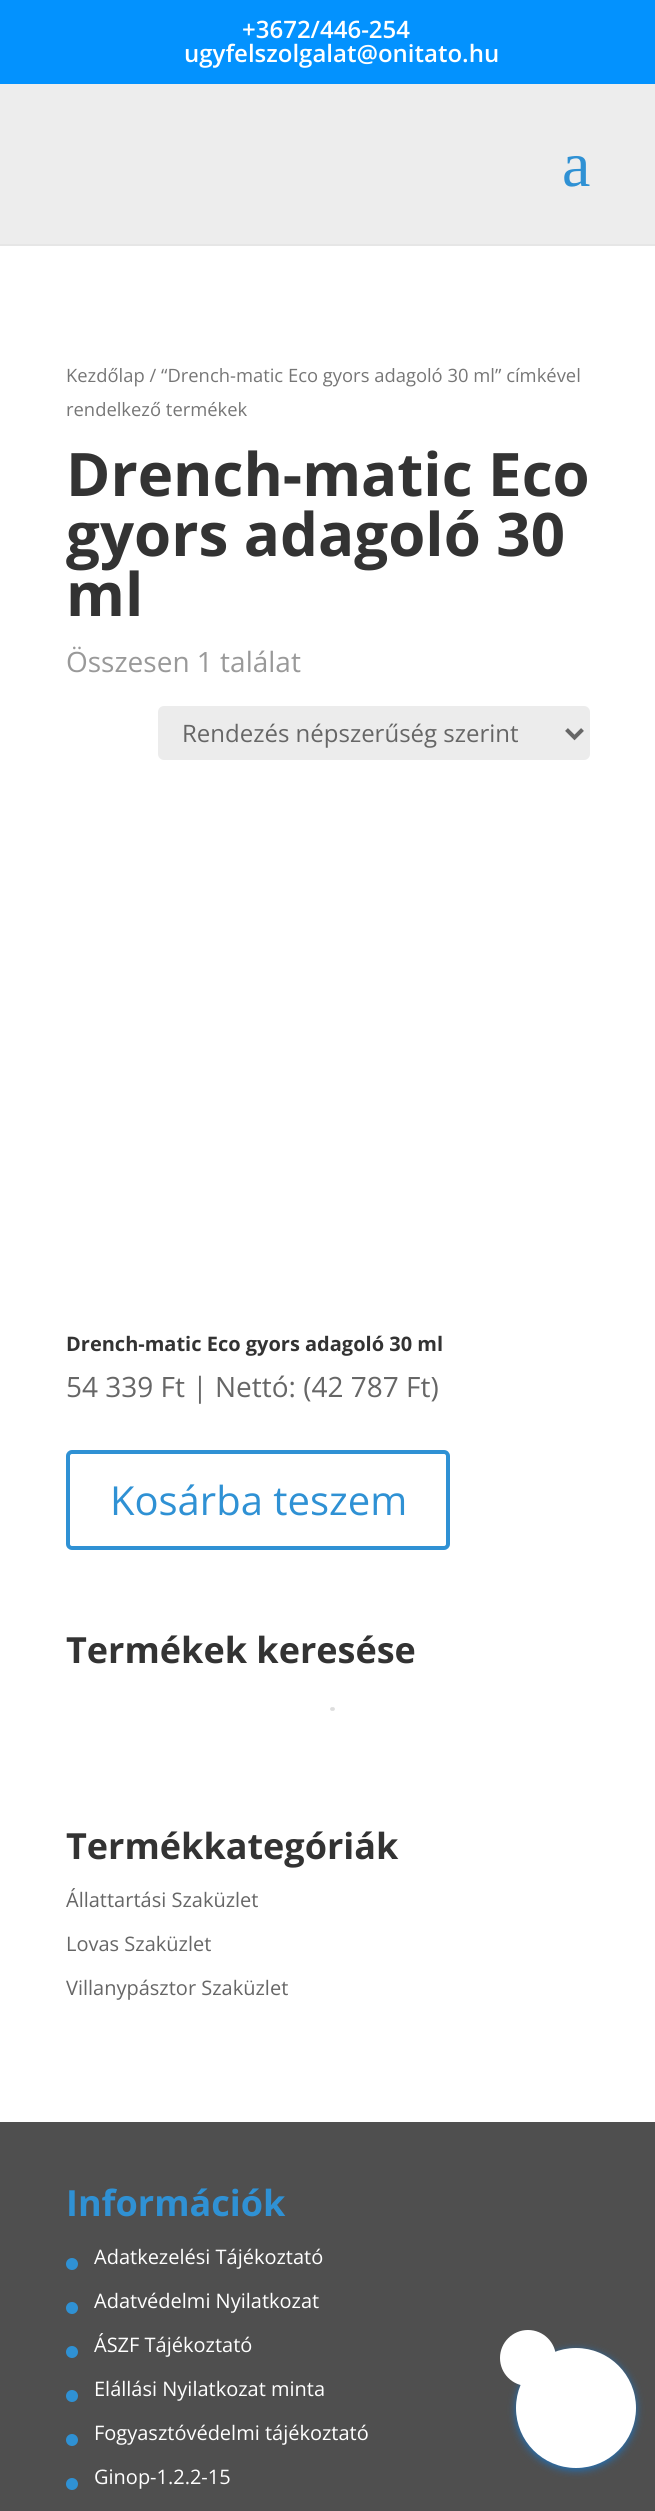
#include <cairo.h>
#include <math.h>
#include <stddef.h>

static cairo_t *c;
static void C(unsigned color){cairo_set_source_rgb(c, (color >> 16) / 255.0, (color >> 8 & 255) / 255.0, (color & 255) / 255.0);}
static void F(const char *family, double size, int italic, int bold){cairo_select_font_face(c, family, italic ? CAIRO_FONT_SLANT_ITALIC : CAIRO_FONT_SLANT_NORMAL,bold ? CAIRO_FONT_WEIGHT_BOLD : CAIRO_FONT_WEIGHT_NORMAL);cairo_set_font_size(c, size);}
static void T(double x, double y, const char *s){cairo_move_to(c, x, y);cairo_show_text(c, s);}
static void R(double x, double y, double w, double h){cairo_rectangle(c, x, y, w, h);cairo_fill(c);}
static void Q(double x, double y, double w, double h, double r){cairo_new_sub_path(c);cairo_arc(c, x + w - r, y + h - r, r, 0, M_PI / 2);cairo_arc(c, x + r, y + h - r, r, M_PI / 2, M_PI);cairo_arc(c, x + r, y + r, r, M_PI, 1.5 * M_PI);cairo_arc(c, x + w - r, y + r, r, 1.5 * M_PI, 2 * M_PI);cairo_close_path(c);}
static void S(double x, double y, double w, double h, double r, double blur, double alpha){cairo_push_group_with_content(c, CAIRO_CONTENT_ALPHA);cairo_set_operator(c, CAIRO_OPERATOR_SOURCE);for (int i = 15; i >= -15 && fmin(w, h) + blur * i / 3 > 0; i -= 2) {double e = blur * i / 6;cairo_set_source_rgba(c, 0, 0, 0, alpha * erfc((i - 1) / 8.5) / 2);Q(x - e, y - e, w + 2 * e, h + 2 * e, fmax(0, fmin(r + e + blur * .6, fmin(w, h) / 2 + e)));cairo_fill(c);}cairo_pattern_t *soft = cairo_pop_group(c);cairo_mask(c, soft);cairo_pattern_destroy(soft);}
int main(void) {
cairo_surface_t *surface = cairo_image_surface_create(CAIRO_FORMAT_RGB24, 655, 2511);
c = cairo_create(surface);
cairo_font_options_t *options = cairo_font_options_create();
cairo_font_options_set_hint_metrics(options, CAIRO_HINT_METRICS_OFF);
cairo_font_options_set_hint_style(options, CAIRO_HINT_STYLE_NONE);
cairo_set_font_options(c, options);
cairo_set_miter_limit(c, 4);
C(0xffffff);
cairo_paint(c);
C(0x0392fe);
R(0,0,655,84);
F("Open Sans SemiBold",24,0,0);
C(0xffffff);
T(242,38,"+3672/446-254");
T(184,62,"ugyfelszolgalat@onitato.hu");
C(0xe6e6e6);
R(0,244,655,2);
C(0xededed);
R(0,84,655,160);
F("Liberation Serif",64,0,0);
C(0x2f91d4);
T(562,186,"a");
F("Open Sans",18.4,0,0);
C(0x767676);
T(66,382,"Kezdőlap / “Drench-matic Eco gyors adagoló 30 ml” címkével");
T(66,416,"rendelkező termékek");
F("Open Sans",60,0,1);
C(0x333333);
T(66,496,"Drench-matic Eco");
T(66,556,"gyors adagoló 30");
T(66,616,"ml");
F("Open Sans",28,0,0);
C(0x999999);
T(66,672,"Összesen 1 találat");
C(0xececec);
Q(158,706,432,54,6);
cairo_fill(c);
cairo_new_path(c);
cairo_move_to(c,566.5,729.5);
cairo_line_to(c,574.5,737.5);
cairo_line_to(c,582.5,729.5);
C(0x666666);
cairo_set_line_width(c,4);
cairo_stroke(c);
F("Open Sans",24,0,0);
T(182,742,"Rendezés népszerűség szerint");
F("Open Sans",20,0,1);
C(0x333333);
T(66,1351,"Drench-matic Eco gyors adagoló 30 ml");
F("Open Sans",28,0,0);
C(0x666666);
T(66,1397,"54 339 Ft | Nettó: (42 787 Ft)");
Q(68,1452,380,96,4);
C(0x2f91d4);
cairo_stroke(c);
F("Open Sans",40,0,0);
T(110,1515,"Kosárba teszem");
F("Open Sans",36,0,1);
C(0x333333);
T(66,1663,"Termékek keresése");
cairo_new_path(c);
cairo_move_to(c,332,1709);
cairo_line_to(c,333,1709);
C(0xdddddd);
cairo_set_line_width(c,3.8);
cairo_set_line_cap(c,CAIRO_LINE_CAP_ROUND);
cairo_stroke(c);
C(0x333333);
T(66,1859,"Termékkategóriák");
F("Open Sans",20,0,0);
C(0x666666);
T(66,1907,"Állattartási Szaküzlet");
T(66,1951,"Lovas Szaküzlet");
T(66,1995,"Villanypásztor Szaküzlet");
C(0x4f4f4f);
R(0,2122,655,389);
F("Open Sans",36,0,1);
C(0x2f91d4);
T(66,2216,"Információk");
cairo_new_path(c);
cairo_arc(c,72,2264,6,0,2 * M_PI);
cairo_fill(c);
F("Open Sans",20,0,0);
C(0xffffff);
T(94,2264,"Adatkezelési Tájékoztató");
C(0x2f91d4);
cairo_new_path(c);
cairo_arc(c,72,2308,6,0,2 * M_PI);
cairo_fill(c);
C(0xffffff);
T(94,2308,"Adatvédelmi Nyilatkozat");
C(0x2f91d4);
cairo_new_path(c);
cairo_arc(c,72,2352,6,0,2 * M_PI);
cairo_fill(c);
C(0xffffff);
T(94,2352,"ÁSZF Tájékoztató");
C(0x2f91d4);
cairo_new_path(c);
cairo_arc(c,72,2396,6,0,2 * M_PI);
cairo_fill(c);
C(0xffffff);
T(94,2396,"Elállási Nyilatkozat minta");
C(0x2f91d4);
cairo_new_path(c);
cairo_arc(c,72,2440,6,0,2 * M_PI);
cairo_fill(c);
C(0xffffff);
T(94,2440,"Fogyasztóvédelmi tájékoztató");
C(0x2f91d4);
cairo_new_path(c);
cairo_arc(c,72,2484,6,0,2 * M_PI);
cairo_fill(c);
C(0xffffff);
T(94,2484,"Ginop-1.2.2-15");
C(0x1e73be);
S(516,2350,120,120,60,4,1);
C(0xffffff);
cairo_arc(c,576,2408,60,0,2 * M_PI);
cairo_fill(c);
cairo_arc(c,528,2358,28,0,2 * M_PI);
cairo_fill(c);
cairo_surface_write_to_png(surface, "o.png");
cairo_font_options_destroy(options);
cairo_destroy(c);
cairo_surface_destroy(surface);
return 0;
}
